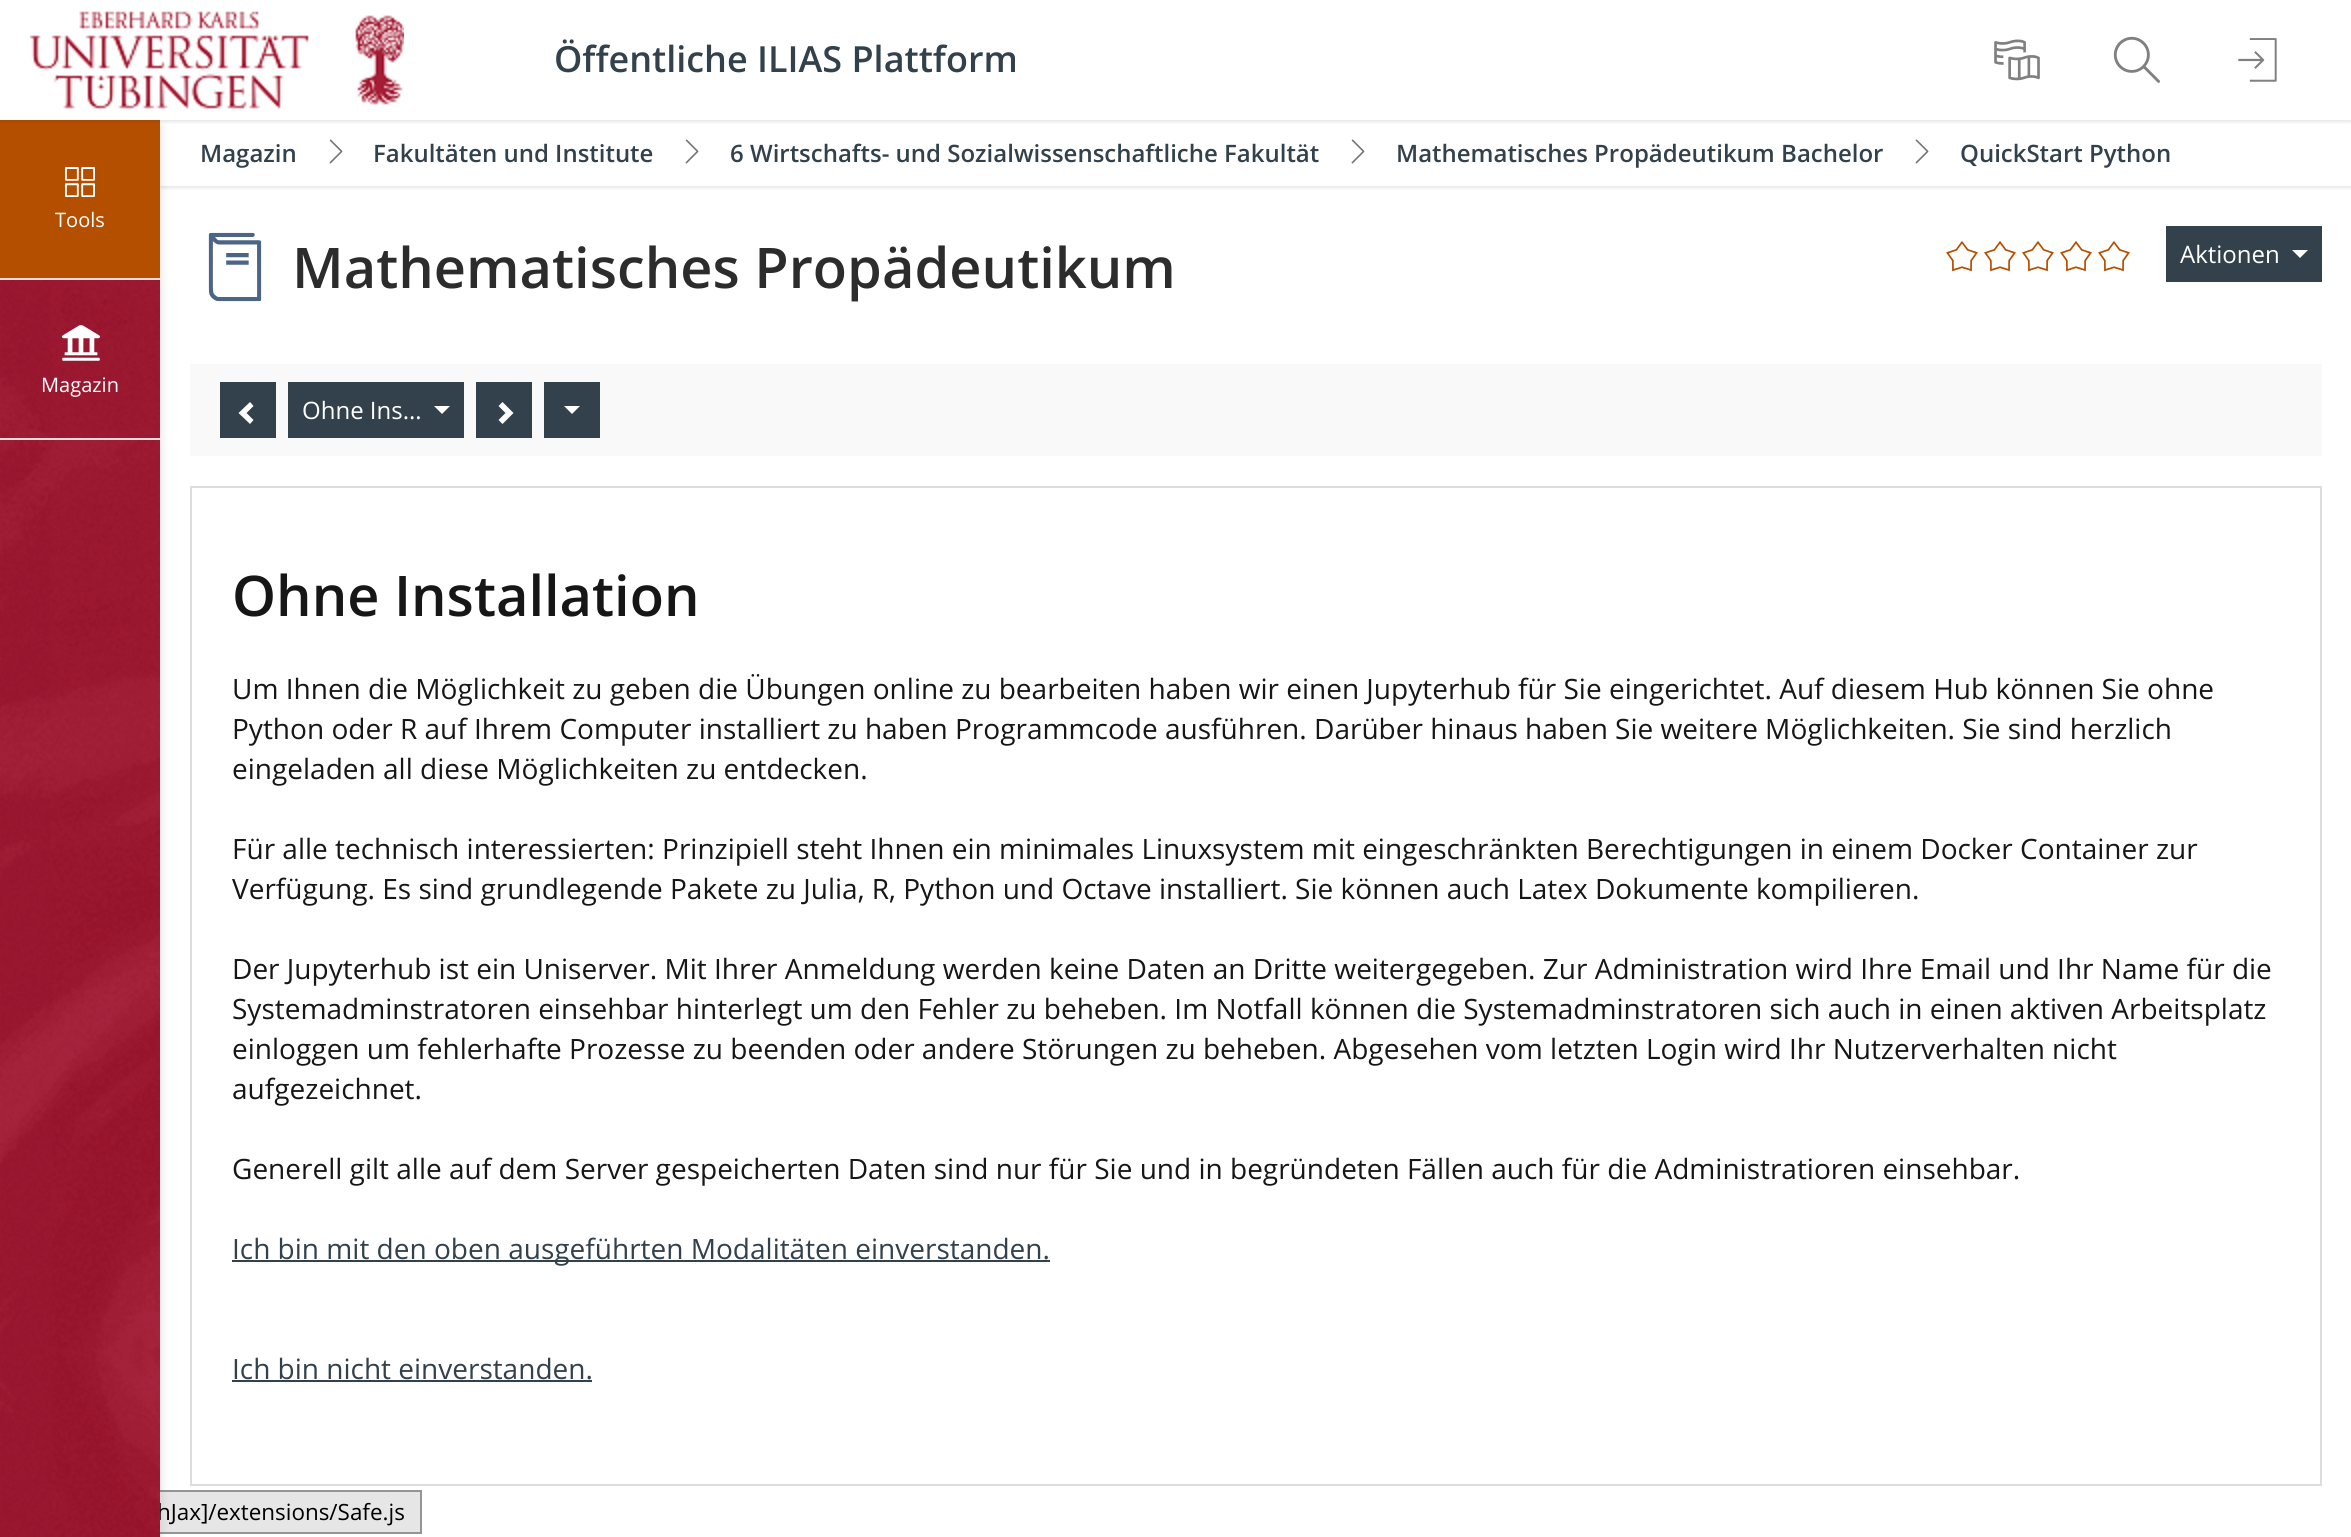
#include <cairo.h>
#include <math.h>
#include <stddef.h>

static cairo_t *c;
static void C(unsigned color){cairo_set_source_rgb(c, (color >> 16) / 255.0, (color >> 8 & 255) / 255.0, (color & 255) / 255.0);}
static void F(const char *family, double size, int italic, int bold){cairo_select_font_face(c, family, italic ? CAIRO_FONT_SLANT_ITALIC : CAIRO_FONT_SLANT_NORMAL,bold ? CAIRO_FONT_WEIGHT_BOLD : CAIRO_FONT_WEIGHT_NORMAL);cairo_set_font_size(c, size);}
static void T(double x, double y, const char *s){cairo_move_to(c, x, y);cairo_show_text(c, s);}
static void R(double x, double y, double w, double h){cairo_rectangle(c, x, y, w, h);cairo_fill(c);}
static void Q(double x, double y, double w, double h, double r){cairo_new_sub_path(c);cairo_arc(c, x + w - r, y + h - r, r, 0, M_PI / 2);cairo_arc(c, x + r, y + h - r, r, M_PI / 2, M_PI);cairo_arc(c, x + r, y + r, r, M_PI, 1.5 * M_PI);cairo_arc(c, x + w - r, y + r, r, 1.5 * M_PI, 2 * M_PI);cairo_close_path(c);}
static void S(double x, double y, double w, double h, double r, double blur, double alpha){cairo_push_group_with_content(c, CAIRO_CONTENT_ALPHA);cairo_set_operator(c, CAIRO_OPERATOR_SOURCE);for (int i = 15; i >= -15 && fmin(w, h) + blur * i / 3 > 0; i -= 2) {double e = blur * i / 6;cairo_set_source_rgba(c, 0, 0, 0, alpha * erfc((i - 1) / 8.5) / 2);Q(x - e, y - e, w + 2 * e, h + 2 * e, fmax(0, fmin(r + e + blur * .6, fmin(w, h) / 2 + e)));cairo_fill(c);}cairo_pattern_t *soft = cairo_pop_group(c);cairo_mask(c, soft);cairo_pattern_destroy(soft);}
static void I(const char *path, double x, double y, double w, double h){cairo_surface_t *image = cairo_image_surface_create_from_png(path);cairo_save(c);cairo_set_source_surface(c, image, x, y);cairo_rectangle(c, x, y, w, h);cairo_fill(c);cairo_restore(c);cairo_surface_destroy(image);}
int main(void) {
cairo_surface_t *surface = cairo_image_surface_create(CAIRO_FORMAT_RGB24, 2351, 1537);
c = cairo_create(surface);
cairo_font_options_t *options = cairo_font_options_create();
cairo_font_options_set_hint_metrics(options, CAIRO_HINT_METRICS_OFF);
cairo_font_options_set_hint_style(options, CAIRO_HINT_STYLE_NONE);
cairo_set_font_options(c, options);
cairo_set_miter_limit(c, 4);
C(0xffffff);
cairo_paint(c);
C(0xe6e6e6);
R(160,1492,260,40);
cairo_rectangle(c,3,1491,418,42);
C(0x959595);
cairo_stroke(c);
C(0x000000);
S(2,126,160,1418,0,4,.1);
cairo_save(c);
cairo_rectangle(c,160,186,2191,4);
cairo_clip(c);
S(160,122,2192,66,0,2,.1);
cairo_restore(c);
C(0xb54f00);
R(0,120,160,158);
cairo_save(c);
cairo_rectangle(c,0,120,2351,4);
cairo_clip(c);
C(0x000000);
S(0,2,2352,120,0,2,.1);
cairo_restore(c);
I("1.png",30,11,374,98);
F("Open Sans SemiBold",36,0,0);
C(0x32414b);
T(554,72,"Öffentliche ILIAS Plattform");
I("2.png",1994,39,46,42);
I("3.png",2113,36,47,47);
I("4.png",2238,38,39,44);
F("Open Sans",22.4,0,0);
C(0x000000);
T(157,1520,"hJax]/extensions/Safe.js");
I("5.png",0,440,160,1097);
C(0xdddddd);
R(0,278,160,2);
I("6.png",65,167,30,30);
F("Open Sans",20,0,0);
C(0xffffff);
T(55,227,"Tools");
I("7.png",0,280,160,158);
C(0xdddddd);
R(0,438,160,2);
I("8.png",61,325,39,36);
C(0xffffff);
T(41,392,"Magazin");
F("Open Sans SemiBold",24,0,0);
C(0x32414b);
T(200,162,"Magazin");
I("9.png",329,139,14,25);
T(373,162,"Fakultäten und Institute");
I("9.png",685,139,14,25);
T(730,162,"6 Wirtschafts- und Sozialwissenschaftliche Fakultät");
I("9.png",1351,139,14,25);
T(1396,162,"Mathematisches Propädeutikum Bachelor");
I("9.png",1915,139,14,25);
T(1960,162,"QuickStart Python");
I("10.png",208,232,54,70);
F("Open Sans SemiBold",56,0,0);
C(0x2c2c2c);
T(292,288,"Mathematisches Propädeutikum");
I("11.png",1946,241,32,31);
I("11.png",1984,241,32,31);
I("11.png",2022,241,32,31);
I("11.png",2060,241,32,31);
I("11.png",2098,241,32,31);
C(0x32414b);
R(2166,226,156,56);
F("Open Sans",24,0,0);
C(0xffffff);
T(2180,263,"Aktionen");
cairo_new_path(c);
cairo_move_to(c,2292,250);
cairo_line_to(c,2308,250);
cairo_line_to(c,2300,258);
cairo_close_path(c);
cairo_fill(c);
C(0xf9f9f9);
R(190,364,2132,92);
C(0x32414b);
R(220,382,56,56);
C(0xffffff);
cairo_new_path(c);
cairo_move_to(c,253.5,406);
cairo_line_to(c,246.5,413);
cairo_line_to(c,253.5,420);
cairo_line_to(c,250,424);
cairo_line_to(c,238.5,413);
cairo_line_to(c,250,402);
cairo_close_path(c);
cairo_fill(c);
C(0x32414b);
R(288,382,176,56);
C(0xffffff);
T(302,419,"Ohne Ins…");
cairo_new_path(c);
cairo_move_to(c,434,406);
cairo_line_to(c,450,406);
cairo_line_to(c,442,414);
cairo_close_path(c);
cairo_fill(c);
C(0x32414b);
R(476,382,56,56);
C(0xffffff);
cairo_new_path(c);
cairo_move_to(c,513.5,413);
cairo_line_to(c,502.5,424);
cairo_line_to(c,498.5,420);
cairo_line_to(c,505.5,413);
cairo_line_to(c,498.5,406);
cairo_line_to(c,502.5,402);
cairo_close_path(c);
cairo_fill(c);
C(0x32414b);
R(544,382,56,56);
C(0xffffff);
cairo_new_path(c);
cairo_move_to(c,564,406);
cairo_line_to(c,580,406);
cairo_line_to(c,572,414);
cairo_close_path(c);
cairo_fill(c);
cairo_rectangle(c,191,487,2130,998);
C(0xdddddd);
cairo_stroke(c);
F("Open Sans SemiBold",56,0,0);
C(0x161616);
T(232,616,"Ohne Installation");
F("Open Sans",28,0,0);
T(232,699,"Um Ihnen die Möglichkeit zu geben die Übungen online zu bearbeiten haben wir einen Jupyterhub für Sie eingerichtet. Auf diesem Hub können Sie ohne");
T(232,739,"Python oder R auf Ihrem Computer installiert zu haben Programmcode ausführen. Darüber hinaus haben Sie weitere Möglichkeiten. Sie sind herzlich");
T(232,779,"eingeladen all diese Möglichkeiten zu entdecken.");
T(232,859,"Für alle technisch interessierten: Prinzipiell steht Ihnen ein minimales Linuxsystem mit eingeschränkten Berechtigungen in einem Docker Container zur");
T(232,899,"Verfügung. Es sind grundlegende Pakete zu Julia, R, Python und Octave installiert. Sie können auch Latex Dokumente kompilieren.");
T(232,979,"Der Jupyterhub ist ein Uniserver. Mit Ihrer Anmeldung werden keine Daten an Dritte weitergegeben. Zur Administration wird Ihre Email und Ihr Name für die");
T(232,1019,"Systemadminstratoren einsehbar hinterlegt um den Fehler zu beheben. Im Notfall können die Systemadminstratoren sich auch in einen aktiven Arbeitsplatz");
T(232,1059,"einloggen um fehlerhafte Prozesse zu beenden oder andere Störungen zu beheben. Abgesehen vom letzten Login wird Ihr Nutzerverhalten nicht");
T(232,1099,"aufgezeichnet.");
T(232,1179,"Generell gilt alle auf dem Server gespeicherten Daten sind nur für Sie und in begründeten Fällen auch für die Administratioren einsehbar.");
C(0x32414b);
R(232,1260,818,2);
T(232,1259,"Ich bin mit den oben ausgeführten Modalitäten einverstanden.");
T(232,1379,"Ich bin nicht einverstanden.");
R(232,1380,360,2);
cairo_surface_write_to_png(surface, "o.png");
cairo_font_options_destroy(options);
cairo_destroy(c);
cairo_surface_destroy(surface);
return 0;
}
